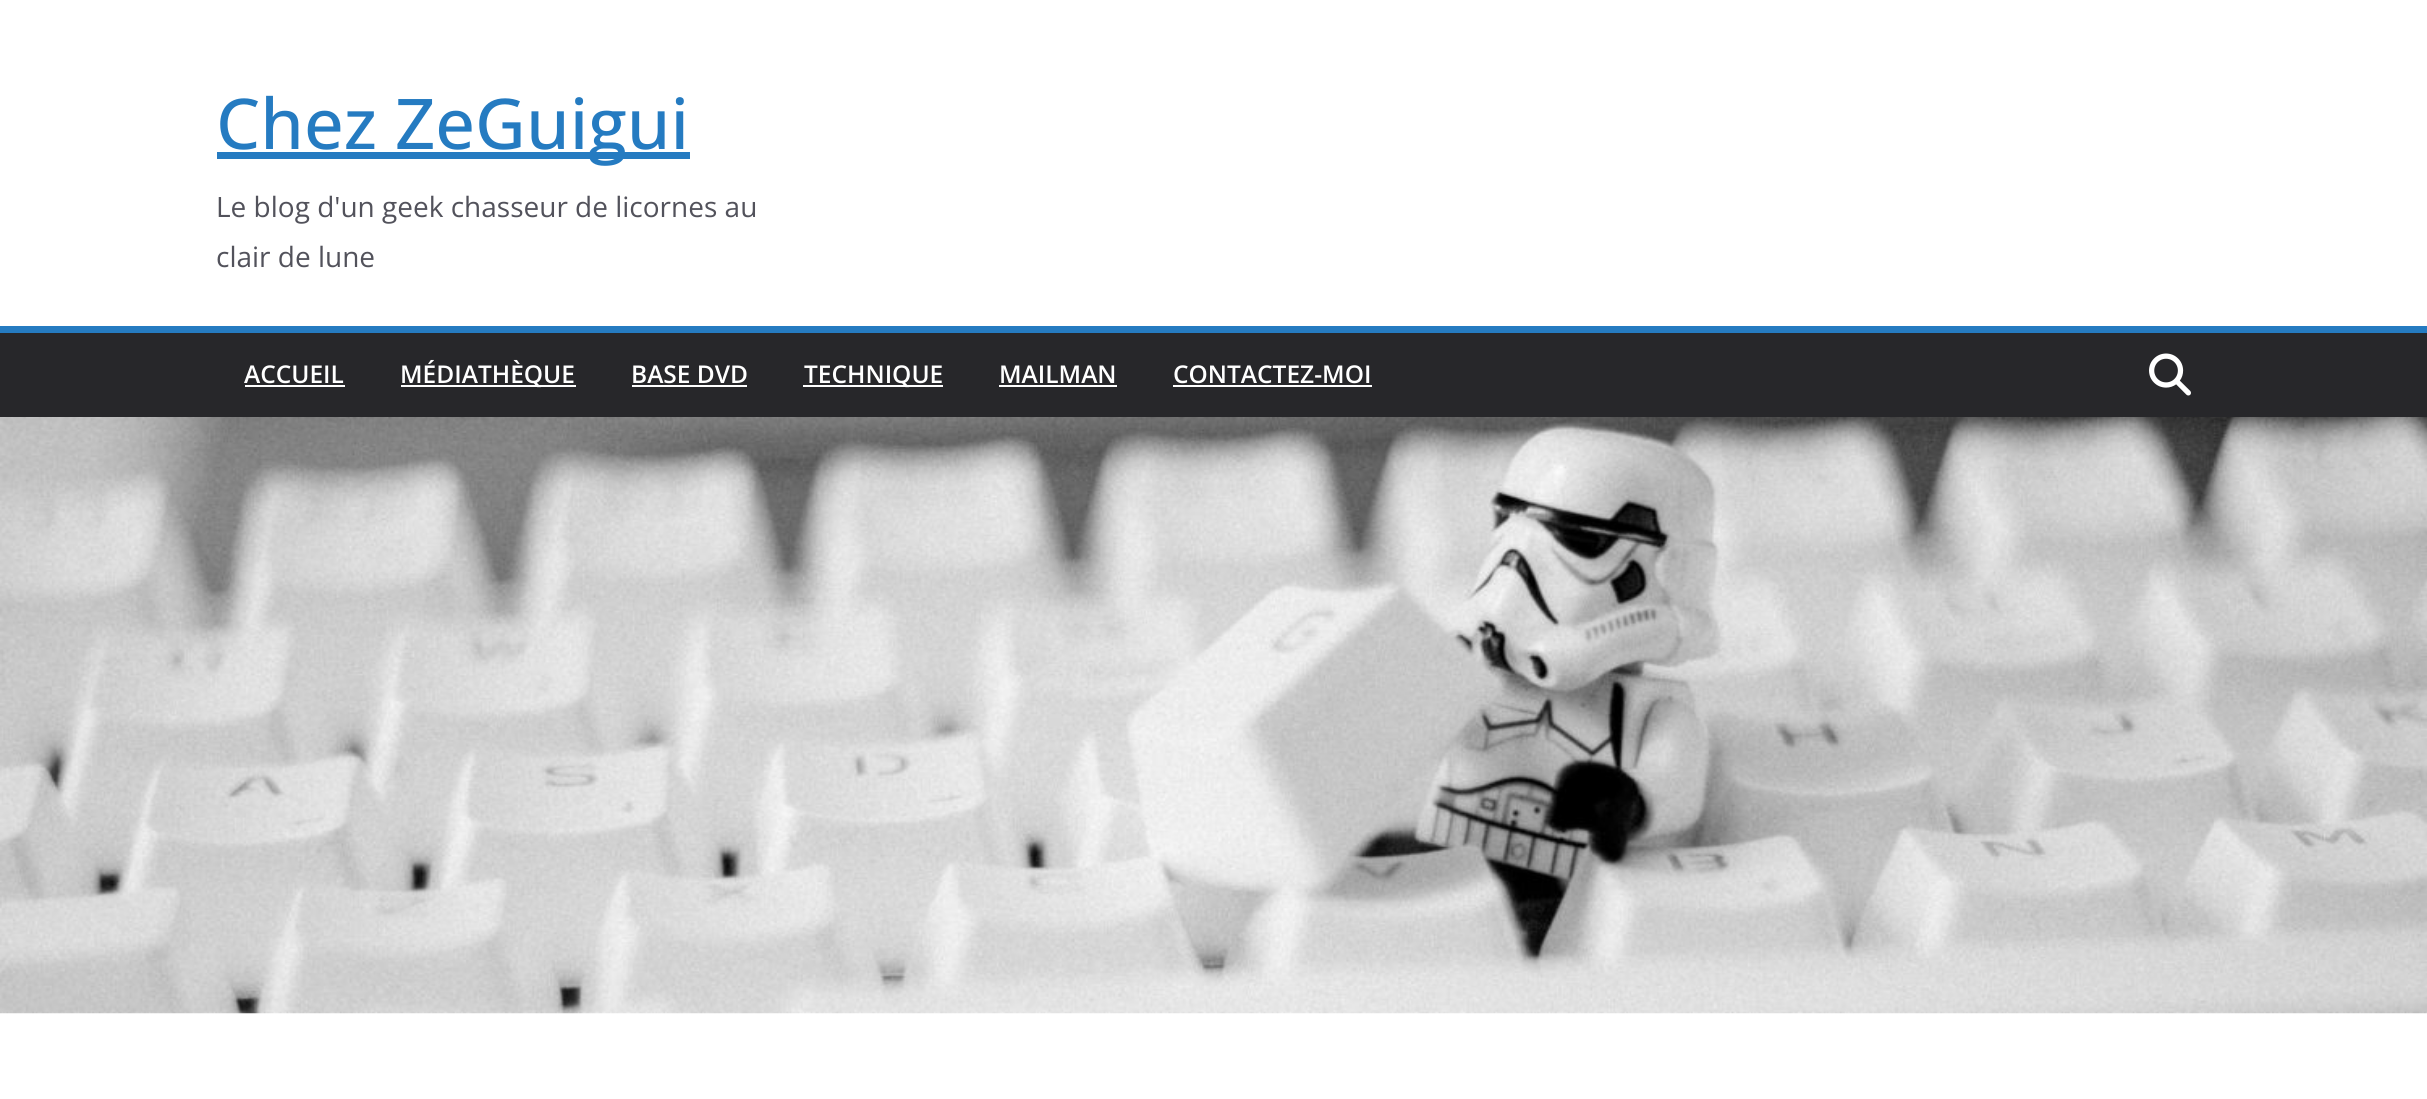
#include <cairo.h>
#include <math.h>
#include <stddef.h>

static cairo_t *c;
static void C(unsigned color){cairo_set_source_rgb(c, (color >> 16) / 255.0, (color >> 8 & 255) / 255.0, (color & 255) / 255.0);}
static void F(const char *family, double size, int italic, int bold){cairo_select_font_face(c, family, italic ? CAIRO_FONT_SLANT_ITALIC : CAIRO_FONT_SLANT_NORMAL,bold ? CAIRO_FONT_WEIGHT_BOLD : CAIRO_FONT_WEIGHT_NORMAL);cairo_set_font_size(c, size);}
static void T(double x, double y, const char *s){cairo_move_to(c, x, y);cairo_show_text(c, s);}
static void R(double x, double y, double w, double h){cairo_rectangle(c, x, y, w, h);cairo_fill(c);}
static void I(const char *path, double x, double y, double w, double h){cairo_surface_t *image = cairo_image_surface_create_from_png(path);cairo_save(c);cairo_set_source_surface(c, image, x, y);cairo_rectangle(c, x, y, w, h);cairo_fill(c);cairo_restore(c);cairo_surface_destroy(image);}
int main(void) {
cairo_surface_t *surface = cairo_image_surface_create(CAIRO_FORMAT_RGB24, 2427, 1099);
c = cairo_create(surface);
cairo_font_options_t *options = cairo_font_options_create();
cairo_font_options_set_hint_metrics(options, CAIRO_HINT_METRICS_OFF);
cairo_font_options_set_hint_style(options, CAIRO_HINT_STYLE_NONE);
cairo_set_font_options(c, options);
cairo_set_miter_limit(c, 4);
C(0xffffff);
cairo_paint(c);
C(0x257bc1);
R(217,152,473,7);
F("Open Sans Medium",70,0,0);
T(216,149,"Chez ZeGuigui");
F("Open Sans",28,0,0);
C(0x52525b);
T(216,217,"Le blog d'un geek chasseur de licornes au");
T(216,267,"clair de lune");
C(0x27272a);
R(0,333,2427,84);
C(0x257bc1);
R(0,326,2427,7);
F("Open Sans SemiBold",24.5,0,0);
C(0xffffff);
T(244,383,"ACCUEIL");
R(245,385,100,2);
R(401,385,175,2);
T(400,383,"MÉDIATHÈQUE");
T(631,383,"BASE DVD");
R(632,385,115,2);
R(803,385,140,2);
T(804,383,"TECHNIQUE");
T(999,383,"MAILMAN");
R(999,385,118,2);
T(1173,383,"CONTACTEZ-MOI");
R(1173,385,199,2);
I("1.png",2149,353,42,43);
I("2.png",0,417,2427,597);
cairo_surface_write_to_png(surface, "o.png");
cairo_font_options_destroy(options);
cairo_destroy(c);
cairo_surface_destroy(surface);
return 0;
}
